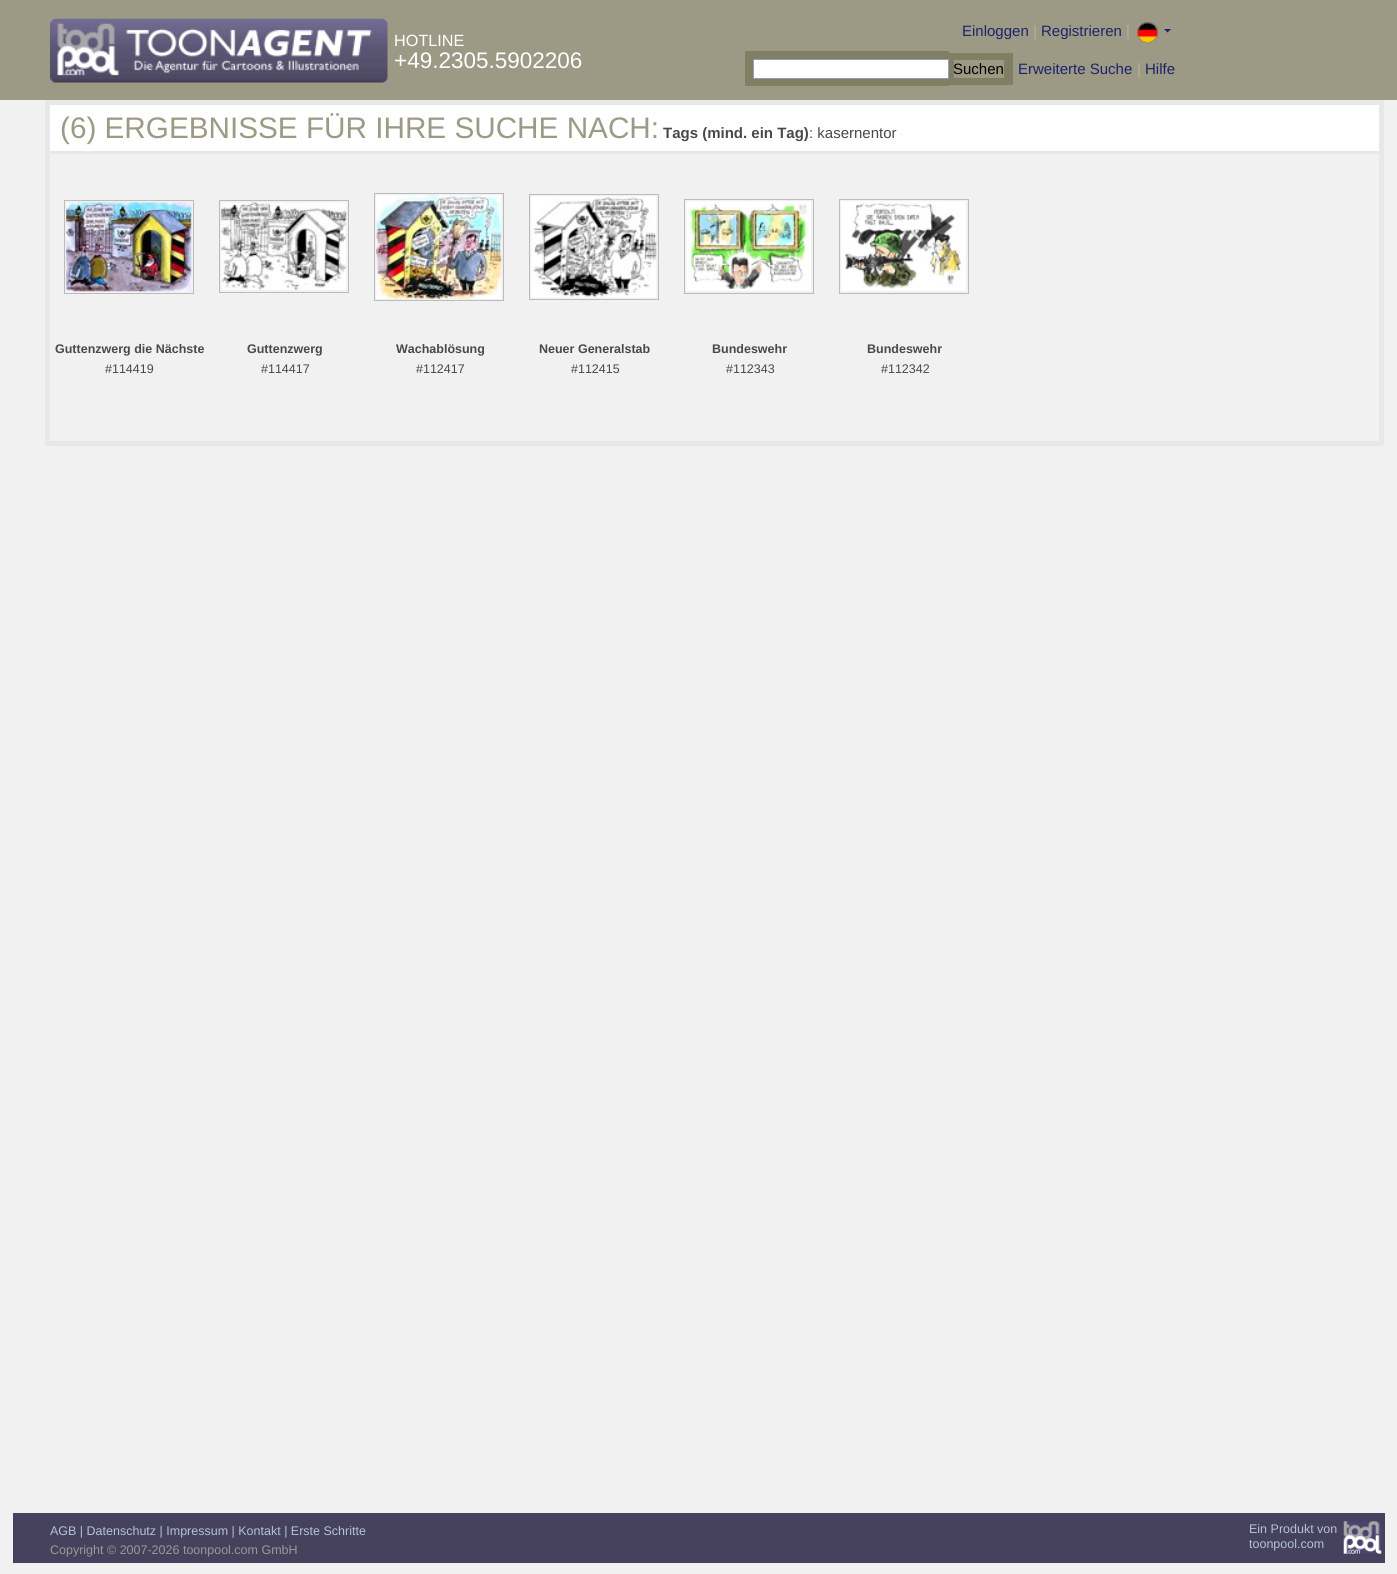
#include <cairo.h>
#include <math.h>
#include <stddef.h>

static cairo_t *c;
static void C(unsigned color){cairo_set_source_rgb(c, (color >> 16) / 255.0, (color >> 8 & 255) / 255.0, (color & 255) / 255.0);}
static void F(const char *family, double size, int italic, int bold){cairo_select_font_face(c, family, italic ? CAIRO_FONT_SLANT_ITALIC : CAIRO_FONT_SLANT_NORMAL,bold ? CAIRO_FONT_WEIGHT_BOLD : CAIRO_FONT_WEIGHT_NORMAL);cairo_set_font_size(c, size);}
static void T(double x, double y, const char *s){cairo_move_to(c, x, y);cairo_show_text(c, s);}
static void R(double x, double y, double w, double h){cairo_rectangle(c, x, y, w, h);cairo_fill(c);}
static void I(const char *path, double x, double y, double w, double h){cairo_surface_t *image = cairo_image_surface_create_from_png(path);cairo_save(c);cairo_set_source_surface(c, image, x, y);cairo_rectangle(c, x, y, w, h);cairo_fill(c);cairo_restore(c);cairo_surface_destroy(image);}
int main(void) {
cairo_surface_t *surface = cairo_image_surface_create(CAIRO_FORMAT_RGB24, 1397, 1574);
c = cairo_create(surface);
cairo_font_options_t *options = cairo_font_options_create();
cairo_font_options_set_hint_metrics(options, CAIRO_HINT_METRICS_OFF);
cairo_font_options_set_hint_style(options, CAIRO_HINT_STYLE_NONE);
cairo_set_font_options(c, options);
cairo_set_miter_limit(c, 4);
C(0xf1f1f1);
cairo_paint(c);
C(0x9c9984);
R(0,0,1397,100);
F("Liberation Sans",15,0,0);
C(0x1d246c);
T(962,36,"Einloggen");
C(0xb5b29b);
T(1033,36,"|");
C(0x1d246c);
T(1041,36,"Registrieren");
C(0xb5b29b);
T(1126,36,"|");
I("1.png",1137,22,21,22);
C(0x1d246c);
cairo_new_path(c);
cairo_move_to(c,1164,29);
cairo_line_to(c,1171,29);
cairo_line_to(c,1167.5,32.5);
cairo_close_path(c);
cairo_fill(c);
I("2.png",50,18,338,65);
F("Liberation Sans",16.25,0,0);
C(0xffffff);
T(394,46,"HOTLINE");
F("Liberation Sans",22.5,0,0);
T(394,68,"+49.2305.5902206");
C(0x827e63);
R(745,51,204,35);
R(949,53,64,32);
C(0xffffff);
cairo_rectangle(c,753.5,59.5,195,19);
cairo_fill_preserve(c);
C(0x999cbb);
cairo_set_line_width(c,1);
cairo_stroke(c);
C(0x9c9984);
R(954,60,50,18);
F("Liberation Sans",15,0,0);
C(0x000000);
T(953,74,"Suchen");
C(0x1d246c);
T(1018,74,"Erweiterte Suche");
C(0xb5b29b);
T(1137,74,"|");
C(0x1d246c);
T(1145,74,"Hilfe");
cairo_rectangle(c,47.5,102.5,1334,341);
C(0xe8e8e8);
cairo_set_line_width(c,5);
cairo_stroke(c);
C(0xffffff);
R(50,105,1329,46);
F("Liberation Sans",29.7,0,0);
C(0x9c9984);
T(60,138,"(6) ERGEBNISSE FÜR IHRE SUCHE NACH:");
F("Liberation Sans",15,0,1);
C(0x494949);
T(663,138,"Tags (mind. ein Tag)");
F("Liberation Sans",15,0,0);
T(809,138,": kasernentor");
C(0xe8e8e8);
R(50,151,1329,3);
cairo_rectangle(c,64.5,200.5,129,93);
C(0xbbbbbb);
cairo_set_line_width(c,1);
cairo_stroke(c);
I("3.png",66,202,126,90);
F("Liberation Sans",12.5,0,1);
C(0x494949);
T(55,353,"Guttenzwerg die Nächste");
F("Liberation Sans",12.5,0,0);
T(105,373,"#114419");
cairo_rectangle(c,219.5,200.5,129,92);
C(0xbbbbbb);
cairo_stroke(c);
I("4.png",221,202,126,88);
F("Liberation Sans",12.5,0,1);
C(0x494949);
T(247,353,"Guttenzwerg");
F("Liberation Sans",12.5,0,0);
T(261,373,"#114417");
cairo_rectangle(c,374.5,193.5,129,107);
C(0xbbbbbb);
cairo_stroke(c);
I("5.png",376,195,126,104);
F("Liberation Sans",12.5,0,1);
C(0x494949);
T(396,353,"Wachablösung");
F("Liberation Sans",12.5,0,0);
T(416,373,"#112417");
cairo_rectangle(c,529.5,194.5,129,105);
C(0xbbbbbb);
cairo_stroke(c);
I("6.png",531,196,126,102);
F("Liberation Sans",12.5,0,1);
C(0x494949);
T(539,353,"Neuer Generalstab");
F("Liberation Sans",12.5,0,0);
T(571,373,"#112415");
cairo_rectangle(c,684.5,199.5,129,94);
C(0xbbbbbb);
cairo_stroke(c);
I("7.png",686,201,125,90);
F("Liberation Sans",12.5,0,1);
C(0x494949);
T(712,353,"Bundeswehr");
F("Liberation Sans",12.5,0,0);
T(726,373,"#112343");
cairo_rectangle(c,839.5,199.5,129,94);
C(0xbbbbbb);
cairo_stroke(c);
I("8.png",841,201,125,90);
F("Liberation Sans",12.5,0,1);
C(0x494949);
T(867,353,"Bundeswehr");
F("Liberation Sans",12.5,0,0);
T(881,373,"#112342");
C(0x46415c);
R(13,1513,1372,50);
C(0xb6c2d8);
T(50,1535,"AGB | Datenschutz | Impressum | Kontakt | Erste Schritte");
C(0x999999);
T(50,1554,"Copyright © 2007-2026 toonpool.com GmbH");
C(0xb6c2d8);
T(1249,1533,"Ein Produkt von");
I("9.png",1343,1521,39,33);
T(1249,1548,"toonpool.com");
cairo_surface_write_to_png(surface, "o.png");
cairo_font_options_destroy(options);
cairo_destroy(c);
cairo_surface_destroy(surface);
return 0;
}
